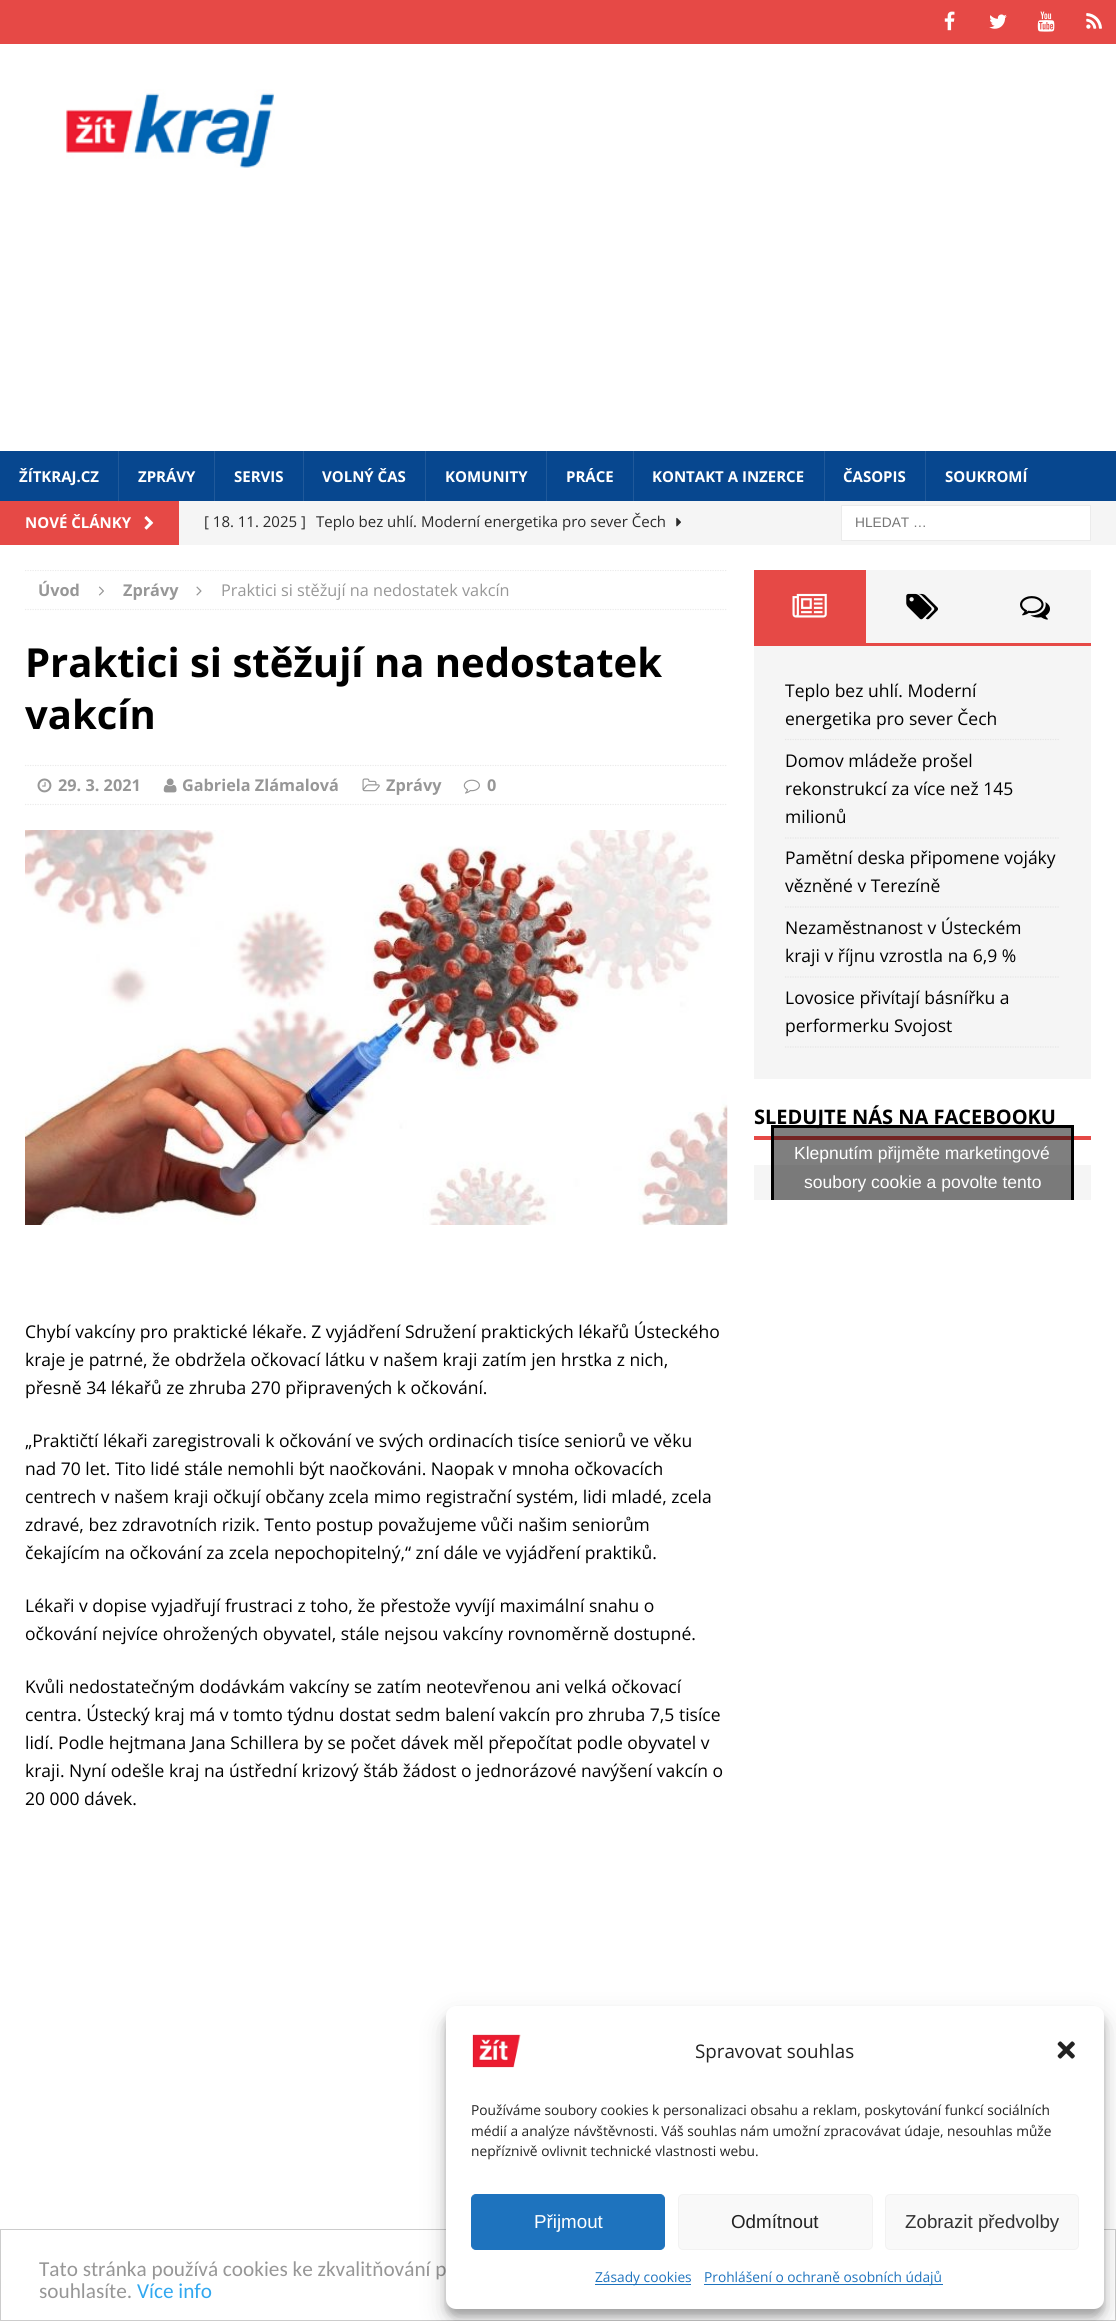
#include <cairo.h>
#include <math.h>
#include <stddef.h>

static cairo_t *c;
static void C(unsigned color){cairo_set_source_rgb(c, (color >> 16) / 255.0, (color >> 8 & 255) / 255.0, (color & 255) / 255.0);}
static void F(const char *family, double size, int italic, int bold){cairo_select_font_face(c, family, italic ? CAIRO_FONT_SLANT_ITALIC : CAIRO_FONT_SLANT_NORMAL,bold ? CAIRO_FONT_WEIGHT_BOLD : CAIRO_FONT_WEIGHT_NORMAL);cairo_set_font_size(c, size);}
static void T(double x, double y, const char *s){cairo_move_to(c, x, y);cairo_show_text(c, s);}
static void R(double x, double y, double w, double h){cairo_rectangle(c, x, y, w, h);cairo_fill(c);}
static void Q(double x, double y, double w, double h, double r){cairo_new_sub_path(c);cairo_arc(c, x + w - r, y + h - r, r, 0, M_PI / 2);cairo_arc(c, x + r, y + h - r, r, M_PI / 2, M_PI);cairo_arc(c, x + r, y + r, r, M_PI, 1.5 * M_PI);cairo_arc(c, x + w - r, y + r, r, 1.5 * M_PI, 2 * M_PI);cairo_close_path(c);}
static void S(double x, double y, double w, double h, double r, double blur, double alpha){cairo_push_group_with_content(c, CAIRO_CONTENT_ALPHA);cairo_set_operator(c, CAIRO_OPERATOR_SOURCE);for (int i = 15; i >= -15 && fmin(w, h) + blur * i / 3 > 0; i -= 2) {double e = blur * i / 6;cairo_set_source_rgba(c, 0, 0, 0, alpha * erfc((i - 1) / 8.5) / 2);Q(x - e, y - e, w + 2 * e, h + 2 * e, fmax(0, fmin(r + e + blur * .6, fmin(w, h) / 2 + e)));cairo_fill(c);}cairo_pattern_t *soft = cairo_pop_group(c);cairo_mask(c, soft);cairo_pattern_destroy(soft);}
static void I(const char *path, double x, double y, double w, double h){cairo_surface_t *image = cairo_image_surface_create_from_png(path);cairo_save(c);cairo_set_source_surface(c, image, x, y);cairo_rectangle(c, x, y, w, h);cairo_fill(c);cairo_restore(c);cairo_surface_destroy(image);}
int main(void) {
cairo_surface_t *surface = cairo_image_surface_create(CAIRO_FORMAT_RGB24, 1116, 2321);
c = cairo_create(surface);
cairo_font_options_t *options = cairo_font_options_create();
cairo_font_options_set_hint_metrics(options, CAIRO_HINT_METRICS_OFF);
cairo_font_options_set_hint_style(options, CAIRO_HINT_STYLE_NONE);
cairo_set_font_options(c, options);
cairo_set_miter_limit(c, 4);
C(0xffffff);
cairo_paint(c);
C(0xe64946);
R(0,0,1116,44);
I("1.png",944,11,11,20);
I("2.png",989,14,18,15);
I("3.png",1037,11,18,21);
I("4.png",1086,13,16,16);
I("5.png",66,89,209,79);
C(0x07478f);
R(0,451,1116,50);
F("Open Sans",15,0,1);
C(0xffffff);
T(19,482,"ŽÍTKRAJ.CZ");
C(0x20599a);
R(118,451,1,50);
C(0xffffff);
T(138,482,"ZPRÁVY");
C(0x20599a);
R(214,451,1,50);
C(0xffffff);
T(234,482,"SERVIS");
C(0x20599a);
R(303,451,1,50);
C(0xffffff);
T(322,482,"VOLNÝ ČAS");
C(0x20599a);
R(425,451,1,50);
C(0xffffff);
T(445,482,"KOMUNITY");
C(0x20599a);
R(546,451,1,50);
C(0xffffff);
T(566,482,"PRÁCE");
C(0x20599a);
R(633,451,1,50);
C(0xffffff);
T(652,482,"KONTAKT A INZERCE");
C(0x20599a);
R(824,451,1,50);
C(0xffffff);
T(843,482,"ČASOPIS");
C(0x20599a);
R(925,451,1,50);
C(0xffffff);
T(945,482,"SOUKROMÍ");
C(0xf5f5f5);
R(179,501,937,44);
C(0xe64946);
R(0,501,179,44);
C(0xffffff);
T(25,528,"NOVÉ ČLÁNKY");
I("6.png",144,516,10,14);
F("Open Sans",15,0,0);
C(0x2a2a2a);
T(204,527,"[ 18. 11. 2025 ]");
T(316,527,"Teplo bez uhlí. Moderní energetika pro sever Čech");
I("7.png",676,517,5,10);
C(0xffffff);
cairo_rectangle(c,841.5,505.5,249,35);
cairo_fill_preserve(c);
C(0xebebeb);
cairo_set_line_width(c,1);
cairo_stroke(c);
F("Liberation Sans",13.75,0,0);
C(0x757575);
T(855,527,"HLEDAT …");
cairo_save(c);
cairo_rectangle(c,25,570,703,1740);
cairo_clip(c);
cairo_new_path(c);
cairo_move_to(c,25,570.5);
cairo_line_to(c,727.5,570.5);
C(0xebebeb);
cairo_set_line_width(c,1.2);
cairo_set_dash(c,(double[]){1.25,1.25},2,0);
cairo_stroke(c);
cairo_restore(c);
cairo_new_path(c);
cairo_move_to(c,25,609.5);
cairo_line_to(c,727.5,609.5);
C(0xebebeb);
cairo_set_line_width(c,1.2);
cairo_set_dash(c,(double[]){1.25,1.25},2,0);
cairo_stroke(c);
F("Open Sans",16.25,0,1);
C(0x979797);
T(38,596,"Úvod");
I("8.png",98,586,6,10);
T(123,596,"Zprávy");
I("9.png",196,586,6,10);
F("Open Sans",16.25,0,0);
T(221,596,"Praktici si stěžují na nedostatek vakcín");
F("Open Sans",40,0,1);
C(0x000000);
T(25,677,"Praktici si stěžují na nedostatek");
T(25,729,"vakcín");
cairo_new_path(c);
cairo_move_to(c,25,765.5);
cairo_line_to(c,727.5,765.5);
C(0xebebeb);
cairo_stroke(c);
cairo_new_path(c);
cairo_move_to(c,25,804.5);
cairo_line_to(c,727.5,804.5);
cairo_stroke(c);
I("10.png",37,778,15,15);
F("Open Sans",16.25,0,1);
C(0x979797);
T(58,791,"29. 3. 2021");
I("11.png",163,778,14,15);
T(182,791,"Gabriela Zlámalová");
I("12.png",362,778,18,14);
T(386,791,"Zprávy");
I("13.png",463,779,17,15);
T(487,791,"0");
I("14.png",25,830,703,395);
F("Open Sans",17.5,0,0);
C(0x000000);
T(25,1338,"Chybí vakcíny pro praktické lékaře. Z vyjádření Sdružení praktických lékařů Ústeckého");
T(25,1366,"kraje je patrné, že obdržela očkovací látku v našem kraji zatím jen hrstka z nich,");
T(25,1394,"přesně 34 lékařů ze zhruba 270 připravených k očkování.");
T(25,1447,"„Praktičtí lékaři zaregistrovali k očkování ve svých ordinacích tisíce seniorů ve věku");
T(25,1475,"nad 70 let. Tito lidé stále nemohli být naočkováni. Naopak v mnoha očkovacích");
T(25,1503,"centrech v našem kraji očkují občany zcela mimo registrační systém, lidi mladé, zcela");
T(25,1531,"zdravé, bez zdravotních rizik. Tento postup považujeme vůči našim seniorům");
T(25,1559,"čekajícím na očkování za zcela nepochopitelný,“ zní dále ve vyjádření praktiků.");
T(25,1612,"Lékaři v dopise vyjadřují frustraci z toho, že přestože vyvíjí maximální snahu o");
T(25,1640,"očkování nejvíce ohrožených obyvatel, stále nejsou vakcíny rovnoměrně dostupné.");
T(25,1693,"Kvůli nedostatečným dodávkám vakcíny se zatím neotevřenou ani velká očkovací");
T(25,1721,"centra. Ústecký kraj má v tomto týdnu dostat sedm balení vakcín pro zhruba 7,5 tisíce");
T(25,1749,"lidí. Podle hejtmana Jana Schillera by se počet dávek měl přepočítat podle obyvatel v");
T(25,1777,"kraji. Nyní odešle kraj na ústřední krizový štáb žádost o jednorázové navýšení vakcín o");
T(25,1805,"20 000 dávek.");
C(0xe64946);
R(754,643,337,3);
R(754,570,112,73);
I("15.png",792,593,35,25);
C(0xf5f5f5);
R(866,570,225,73);
I("16.png",906,593,32,27);
I("17.png",1020,596,30,24);
R(754,646,337,433);
cairo_new_path(c);
cairo_move_to(c,785,739.5);
cairo_line_to(c,1060,739.5);
C(0xe5e5e5);
cairo_stroke(c);
C(0x000000);
T(785,697,"Teplo bez uhlí. Moderní");
T(785,725,"energetika pro sever Čech");
cairo_new_path(c);
cairo_move_to(c,785,838);
cairo_line_to(c,1060,838);
C(0xe5e5e5);
cairo_stroke(c);
C(0x000000);
T(785,767,"Domov mládeže prošel");
T(785,795,"rekonstrukcí za více než 145");
T(785,823,"milionů");
cairo_new_path(c);
cairo_move_to(c,785,907);
cairo_line_to(c,1060,907);
C(0xe5e5e5);
cairo_stroke(c);
C(0x000000);
T(785,864,"Pamětní deska připomene vojáky");
T(785,892,"vězněné v Terezíně");
cairo_new_path(c);
cairo_move_to(c,785,977);
cairo_line_to(c,1060,977);
C(0xe5e5e5);
cairo_stroke(c);
C(0x000000);
T(785,934,"Nezaměstnanost v Ústeckém");
T(785,962,"kraji v říjnu vzrostla na 6,9 %");
cairo_new_path(c);
cairo_move_to(c,785,1047);
cairo_line_to(c,1060,1047);
C(0xe5e5e5);
cairo_stroke(c);
C(0x000000);
T(785,1004,"Lovosice přivítají básnířku a");
T(785,1032,"performerku Svojost");
C(0xe64946);
R(754,1136,337,4);
F("Open Sans",20,0,1);
C(0x000000);
T(754,1124,"SLEDUJTE NÁS NA FACEBOOKU");
C(0xf5f5f5);
R(754,1165,337,35);
cairo_set_source_rgba(c,0,0,0,0.5);
R(774,1128,297,72);
cairo_save(c);
cairo_rectangle(c,754,1104,337,96);
cairo_clip(c);
cairo_rectangle(c,772.5,1126.5,300,113);
C(0x000000);
cairo_set_line_width(c,3);
cairo_set_dash(c,NULL,0,0);
cairo_stroke(c);
cairo_restore(c);
F("Liberation Sans",17.5,0,0);
C(0xffffff);
T(794,1159,"Klepnutím přijměte marketingové");
T(804,1188,"soubory cookie a povolte tento");
cairo_rectangle(c,.5,2229.5,1115,91);
C(0xcccccc);
cairo_set_line_width(c,1);
cairo_set_dash(c,NULL,0,0);
cairo_stroke(c);
F("Carlito",21.25,0,0);
C(0x979797);
T(39,2276,"Tato stránka používá cookies ke zkvalitňování p");
T(39,2298,"souhlasíte.");
C(0x31a8f0);
T(137,2298,"Více info");
C(0x000000);
S(446,2014,658,302,10,4,.23);
S(446,2019,658,302,10,12.5,.19);
C(0xffffff);
Q(446,2006,658,303,10);
cairo_fill(c);
I("18.png",472,2034,49,34);
F("Open Sans",18.75,0,0);
C(0x222222);
T(695,2058,"Spravovat souhlas");
I("19.png",1057,2041,18,18);
F("Open Sans",13.75,0,0);
T(471,2115,"Používáme soubory cookies k personalizaci obsahu a reklam, poskytování funkcí sociálních");
T(471,2136,"médií a analýze návštěvnosti. Váš souhlas nám umožní zpracovávat údaje, nesouhlas může");
T(471,2156,"nepříznivě ovlivnit technické vlastnosti webu.");
C(0x1e73be);
Q(471.5,2194.5,193,55,4.5);
cairo_fill_preserve(c);
cairo_stroke(c);
F("Liberation Sans",18.75,0,0);
C(0xffffff);
T(534,2228,"Přijmout");
C(0xf9f9f9);
Q(678.5,2194.5,194,55,4.5);
cairo_fill_preserve(c);
C(0xf2f2f2);
cairo_stroke(c);
C(0x222222);
T(731,2228,"Odmítnout");
C(0xf9f9f9);
Q(885.5,2194.5,193,55,4.5);
cairo_fill_preserve(c);
C(0xf2f2f2);
cairo_stroke(c);
C(0x333333);
T(905,2228,"Zobrazit předvolby");
C(0x1e73be);
R(595,2284,96,1);
F("Open Sans",13.75,0,0);
T(595,2282,"Zásady cookies");
R(704,2284,239,1);
T(704,2282,"Prohlášení o ochraně osobních údajů");
cairo_surface_write_to_png(surface, "o.png");
cairo_font_options_destroy(options);
cairo_destroy(c);
cairo_surface_destroy(surface);
return 0;
}
